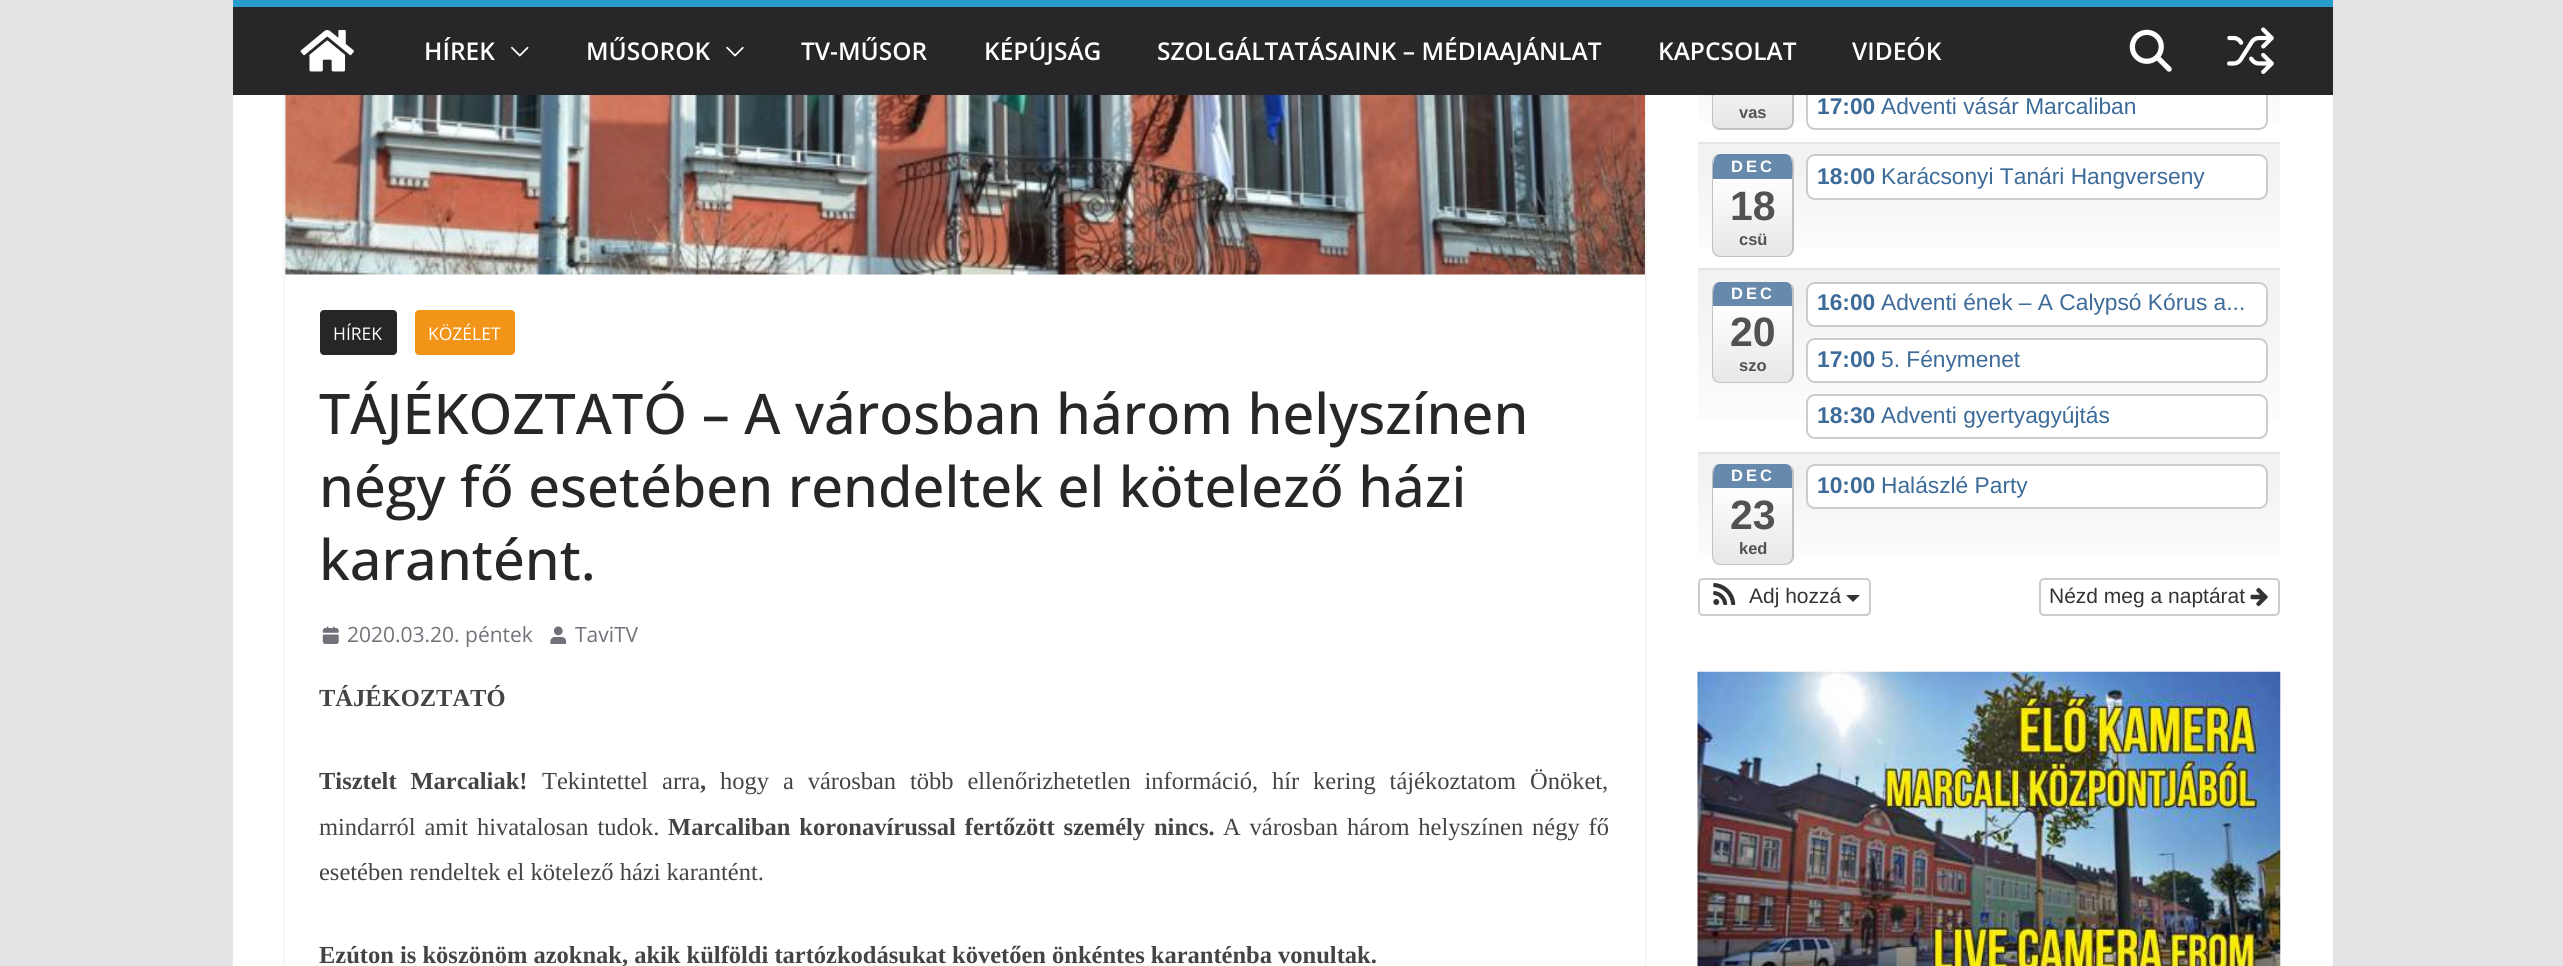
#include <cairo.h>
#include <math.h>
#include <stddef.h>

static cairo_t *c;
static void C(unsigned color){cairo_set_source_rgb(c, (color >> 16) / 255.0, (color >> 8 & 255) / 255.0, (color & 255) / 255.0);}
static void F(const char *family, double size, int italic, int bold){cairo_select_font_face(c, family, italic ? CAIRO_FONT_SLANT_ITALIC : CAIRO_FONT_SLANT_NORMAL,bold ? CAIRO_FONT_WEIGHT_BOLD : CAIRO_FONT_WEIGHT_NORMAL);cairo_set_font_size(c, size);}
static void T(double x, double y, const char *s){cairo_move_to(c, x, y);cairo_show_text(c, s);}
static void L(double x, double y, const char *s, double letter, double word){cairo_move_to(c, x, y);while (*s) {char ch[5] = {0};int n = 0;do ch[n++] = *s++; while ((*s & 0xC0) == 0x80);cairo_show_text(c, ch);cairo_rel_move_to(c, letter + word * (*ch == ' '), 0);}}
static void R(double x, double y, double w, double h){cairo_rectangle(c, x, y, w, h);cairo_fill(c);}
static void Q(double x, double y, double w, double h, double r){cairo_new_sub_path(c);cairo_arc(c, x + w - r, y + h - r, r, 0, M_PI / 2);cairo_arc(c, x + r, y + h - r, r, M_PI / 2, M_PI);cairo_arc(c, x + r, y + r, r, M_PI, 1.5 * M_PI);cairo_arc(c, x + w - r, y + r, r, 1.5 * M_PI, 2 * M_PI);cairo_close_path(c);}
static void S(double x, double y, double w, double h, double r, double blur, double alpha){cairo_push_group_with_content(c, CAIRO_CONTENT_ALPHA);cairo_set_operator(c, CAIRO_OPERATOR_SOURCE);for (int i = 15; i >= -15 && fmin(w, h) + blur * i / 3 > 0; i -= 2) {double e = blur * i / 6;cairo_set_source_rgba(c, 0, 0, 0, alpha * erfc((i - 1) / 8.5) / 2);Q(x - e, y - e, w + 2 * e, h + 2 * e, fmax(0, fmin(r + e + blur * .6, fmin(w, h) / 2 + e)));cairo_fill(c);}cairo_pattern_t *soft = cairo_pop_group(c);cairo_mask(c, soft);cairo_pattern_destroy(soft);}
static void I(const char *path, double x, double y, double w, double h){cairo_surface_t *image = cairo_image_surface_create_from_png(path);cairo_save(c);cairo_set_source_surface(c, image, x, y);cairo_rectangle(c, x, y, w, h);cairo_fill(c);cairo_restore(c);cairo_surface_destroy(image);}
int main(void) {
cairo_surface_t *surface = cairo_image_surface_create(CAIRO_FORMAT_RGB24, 2563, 966);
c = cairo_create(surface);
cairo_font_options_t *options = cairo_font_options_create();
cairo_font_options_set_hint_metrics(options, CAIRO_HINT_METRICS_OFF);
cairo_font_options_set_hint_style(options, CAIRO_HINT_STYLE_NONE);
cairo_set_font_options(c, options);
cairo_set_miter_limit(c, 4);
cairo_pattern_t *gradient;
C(0xe4e4e7);
cairo_paint(c);
C(0xffffff);
R(233,95,2100,871);
cairo_save(c);
cairo_set_fill_rule(c,CAIRO_FILL_RULE_EVEN_ODD);
cairo_new_path(c);
cairo_move_to(c,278,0);
cairo_line_to(c,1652,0);
cairo_line_to(c,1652,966);
cairo_line_to(c,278,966);
cairo_close_path(c);
cairo_move_to(c,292,-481);
cairo_line_to(c,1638,-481);
cairo_curve_to(c,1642,-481,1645,-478,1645,-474);
cairo_line_to(c,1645,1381);
cairo_curve_to(c,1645,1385,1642,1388,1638,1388);
cairo_line_to(c,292,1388);
cairo_curve_to(c,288,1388,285,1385,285,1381);
cairo_line_to(c,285,-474);
cairo_curve_to(c,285,-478,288,-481,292,-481);
cairo_close_path(c);
cairo_clip(c);
C(0xe4e4e7);
S(285,-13,1360,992,7,2,1);
cairo_restore(c);
gradient = cairo_pattern_create_linear(1989,17,1989,142);
cairo_pattern_add_color_stop_rgba(gradient,0,0.949,0.949,0.949,1);
cairo_pattern_add_color_stop_rgba(gradient,.18,0.949,0.949,0.949,1);
cairo_pattern_add_color_stop_rgba(gradient,1,1,1,1,1);
cairo_set_source(c,gradient);
cairo_pattern_destroy(gradient);
R(1698,95,582,27);
cairo_save(c);
Q(1712,28,82,102,9);
cairo_clip(c);
gradient = cairo_pattern_create_linear(1753,28,1753,128);
cairo_pattern_add_color_stop_rgba(gradient,0,1,1,1,1);
cairo_pattern_add_color_stop_rgba(gradient,.21,1,1,1,1);
cairo_pattern_add_color_stop_rgba(gradient,1,0.906,0.906,0.906,1);
cairo_set_source(c,gradient);
cairo_pattern_destroy(gradient);
R(1713,95,79,33);
cairo_restore(c);
C(0xc2c2c2);
cairo_set_fill_rule(c,CAIRO_FILL_RULE_EVEN_ODD);
cairo_new_path(c);
cairo_move_to(c,1720,28);
cairo_line_to(c,1785,28);
cairo_curve_to(c,1790,28,1794,32,1794,37);
cairo_line_to(c,1794,121);
cairo_curve_to(c,1794,126,1790,130,1785,130);
cairo_line_to(c,1720,130);
cairo_curve_to(c,1715,130,1712,126,1712,121);
cairo_line_to(c,1712,37);
cairo_curve_to(c,1712,32,1715,28,1720,28);
cairo_close_path(c);
cairo_move_to(c,1720,28);
cairo_line_to(c,1785,28);
cairo_curve_to(c,1789,28,1792,32,1792,37);
cairo_line_to(c,1792,121);
cairo_curve_to(c,1792,125,1789,128,1785,128);
cairo_line_to(c,1720,128);
cairo_curve_to(c,1716,128,1713,125,1713,121);
cairo_line_to(c,1713,37);
cairo_curve_to(c,1713,32,1716,28,1720,28);
cairo_close_path(c);
cairo_fill(c);
C(0xffffff);
Q(1807,85,460,44,8);
cairo_fill_preserve(c);
C(0xcccccc);
cairo_stroke(c);
C(0x27272a);
R(233,7,2100,88);
C(0x289dcc);
R(233,0,2100,7);
I("1.png",300,30,54,42);
F("Open Sans SemiBold",24.5,0,0);
C(0xffffff);
T(424,60,"HÍREK");
I("2.png",511,46,18,11);
T(586,60,"MŰSOROK");
I("3.png",726,46,18,11);
T(801,60,"TV-MŰSOR");
T(984,60,"KÉPÚJSÁG");
T(1157,60,"SZOLGÁLTATÁSAINK – MÉDIAAJÁNLAT");
T(1658,60,"KAPCSOLAT");
T(1852,60,"VIDEÓK");
I("4.png",2129,29,43,43);
I("5.png",2227,27,47,47);
I("6.png",285,95,1360,180);
C(0x262626);
Q(320,310,77,45,4);
cairo_fill(c);
F("Open Sans",17.5,0,0);
C(0xffffff);
T(333,340,"HÍREK");
C(0xf29417);
Q(415,310,100,45,4);
cairo_fill(c);
C(0xffffff);
T(428,340,"KÖZÉLET");
F("Open Sans Medium",56,0,0);
C(0x27272a);
T(319,434,"TÁJÉKOZTATÓ – A városban három helyszínen");
T(319,507,"négy fő esetében rendeltek el kötelező házi");
T(319,580,"karantént.");
I("7.png",322,626,17,18);
F("Open Sans",21,0,0);
C(0x71717a);
T(347,642,"2020.03.20. péntek");
I("8.png",550,626,17,18);
T(575,642,"TaviTV");
F("Liberation Serif",24.5,0,1);
C(0x444444);
T(319,706,"TÁJÉKOZTATÓ");
L(319,789,"Tisztelt Marcaliak!",0,7.75);
F("Liberation Serif",24.5,0,0);
L(542,789,"Tekintettel arra",0,7.75);
F("Liberation Serif",24.5,0,1);
T(700,789,",");
F("Liberation Serif",24.5,0,0);
L(720,789,"hogy a városban több ellenőrizhetetlen információ, hír kering tájékoztatom Önöket,",0,7.75);
L(319,835,"mindarról amit hivatalosan tudok.",0,2.75);
F("Liberation Serif",24.5,0,1);
L(668,835,"Marcaliban koronavírussal fertőzött személy nincs.",0,2.75);
F("Liberation Serif",24.5,0,0);
L(1223,835,"A városban három helyszínen négy fő",0,2.75);
T(319,880,"esetében rendeltek el kötelező házi karantént.");
F("Liberation Serif",24.5,0,1);
T(319,963,"Ezúton is köszönöm azoknak, akik külföldi tartózkodásukat követően önkéntes karanténba vonultak.");
F("Liberation Sans",16.5,0,1);
C(0x525252);
T(1739,118,"vas");
F("Liberation Sans",22.75,0,1);
C(0x3d6b99);
T(1817,114,"17:00");
F("Liberation Sans",22.75,0,0);
T(1881,114,"Adventi vásár Marcaliban");
gradient = cairo_pattern_create_linear(1989,143,1989,268);
cairo_pattern_add_color_stop_rgba(gradient,0,0.949,0.949,0.949,1);
cairo_pattern_add_color_stop_rgba(gradient,.18,0.949,0.949,0.949,1);
cairo_pattern_add_color_stop_rgba(gradient,1,1,1,1,1);
cairo_set_source(c,gradient);
cairo_pattern_destroy(gradient);
R(1698,144,582,104);
C(0xe5e5e5);
R(1698,142,582,2);
cairo_save(c);
cairo_set_fill_rule(c,CAIRO_FILL_RULE_WINDING);
Q(1712,154,82,103,9);
cairo_clip(c);
gradient = cairo_pattern_create_linear(1753,154,1753,256);
cairo_pattern_add_color_stop_rgba(gradient,0,1,1,1,1);
cairo_pattern_add_color_stop_rgba(gradient,.2,1,1,1,1);
cairo_pattern_add_color_stop_rgba(gradient,1,0.906,0.906,0.906,1);
cairo_set_source(c,gradient);
cairo_pattern_destroy(gradient);
R(1713,154,79,102);
cairo_restore(c);
C(0xc2c2c2);
cairo_new_path(c);
cairo_move_to(c,1720,154);
cairo_line_to(c,1785,154);
cairo_curve_to(c,1790,154,1794,158,1794,163);
cairo_line_to(c,1794,248);
cairo_curve_to(c,1794,253,1790,257,1785,257);
cairo_line_to(c,1720,257);
cairo_curve_to(c,1715,257,1712,253,1712,248);
cairo_line_to(c,1712,163);
cairo_curve_to(c,1712,158,1715,154,1720,154);
cairo_close_path(c);
cairo_move_to(c,1720,154);
cairo_line_to(c,1785,154);
cairo_curve_to(c,1789,154,1792,158,1792,163);
cairo_line_to(c,1792,248);
cairo_curve_to(c,1792,252,1789,256,1785,256);
cairo_line_to(c,1720,256);
cairo_curve_to(c,1716,256,1713,252,1713,248);
cairo_line_to(c,1713,163);
cairo_curve_to(c,1713,158,1716,154,1720,154);
cairo_close_path(c);
cairo_fill(c);
C(0x6689ac);
cairo_set_fill_rule(c,CAIRO_FILL_RULE_WINDING);
cairo_new_path(c);
cairo_move_to(c,1720,154);
cairo_curve_to(c,1711,154,1713,173,1713,179);
cairo_line_to(c,1792,179);
cairo_curve_to(c,1792,173,1795,154,1785,154);
cairo_close_path(c);
cairo_fill(c);
F("Liberation Sans",16.5,0,1);
C(0xffffff);
L(1731,172,"DEC",3,0);
F("Liberation Sans",41,0,1);
C(0x525252);
T(1730,220,"18");
F("Liberation Sans",16.5,0,1);
T(1739,245,"csü");
C(0xffffff);
Q(1807,155,460,44,8);
cairo_fill_preserve(c);
C(0xcccccc);
cairo_stroke(c);
F("Liberation Sans",22.75,0,1);
C(0x3d6b99);
T(1817,184,"18:00");
F("Liberation Sans",22.75,0,0);
T(1881,184,"Karácsonyi Tanári Hangverseny");
gradient = cairo_pattern_create_linear(1989,269,1989,452);
cairo_pattern_add_color_stop_rgba(gradient,0,0.949,0.949,0.949,1);
cairo_pattern_add_color_stop_rgba(gradient,.12,0.949,0.949,0.949,1);
cairo_pattern_add_color_stop_rgba(gradient,1,1,1,1,1);
cairo_set_source(c,gradient);
cairo_pattern_destroy(gradient);
R(1698,270,582,151);
C(0xe5e5e5);
R(1698,268,582,2);
cairo_save(c);
Q(1712,282,82,101,9);
cairo_clip(c);
gradient = cairo_pattern_create_linear(1753,282,1753,382);
cairo_pattern_add_color_stop_rgba(gradient,0,1,1,1,1);
cairo_pattern_add_color_stop_rgba(gradient,.21,1,1,1,1);
cairo_pattern_add_color_stop_rgba(gradient,1,0.906,0.906,0.906,1);
cairo_set_source(c,gradient);
cairo_pattern_destroy(gradient);
R(1713,282,79,100);
cairo_restore(c);
C(0xc2c2c2);
cairo_set_fill_rule(c,CAIRO_FILL_RULE_EVEN_ODD);
cairo_new_path(c);
cairo_move_to(c,1720,282);
cairo_line_to(c,1785,282);
cairo_curve_to(c,1790,282,1794,286,1794,290);
cairo_line_to(c,1794,374);
cairo_curve_to(c,1794,379,1790,383,1785,383);
cairo_line_to(c,1720,383);
cairo_curve_to(c,1715,383,1712,379,1712,374);
cairo_line_to(c,1712,290);
cairo_curve_to(c,1712,286,1715,282,1720,282);
cairo_close_path(c);
cairo_move_to(c,1720,282);
cairo_line_to(c,1785,282);
cairo_curve_to(c,1789,282,1792,286,1792,290);
cairo_line_to(c,1792,374);
cairo_curve_to(c,1792,378,1789,382,1785,382);
cairo_line_to(c,1720,382);
cairo_curve_to(c,1716,382,1713,378,1713,374);
cairo_line_to(c,1713,290);
cairo_curve_to(c,1713,286,1716,282,1720,282);
cairo_close_path(c);
cairo_fill(c);
C(0x6689ac);
cairo_set_fill_rule(c,CAIRO_FILL_RULE_WINDING);
cairo_new_path(c);
cairo_move_to(c,1720,282);
cairo_line_to(c,1786,282);
cairo_curve_to(c,1793,283,1792,291,1792,296);
cairo_line_to(c,1792,306);
cairo_line_to(c,1713,306);
cairo_line_to(c,1713,296);
cairo_curve_to(c,1713,291,1713,282,1720,282);
cairo_close_path(c);
cairo_fill(c);
F("Liberation Sans",16.5,0,1);
C(0xffffff);
L(1731,299,"DEC",3,0);
F("Liberation Sans",41,0,1);
C(0x525252);
T(1730,346,"20");
F("Liberation Sans",16.5,0,1);
T(1739,371,"szo");
C(0xffffff);
Q(1807,283,460,43,8);
cairo_fill_preserve(c);
C(0xcccccc);
cairo_stroke(c);
F("Liberation Sans",22.75,0,1);
C(0x3d6b99);
T(1817,310,"16:00");
F("Liberation Sans",22.75,0,0);
T(1881,310,"Adventi ének – A Calypsó Kórus a...");
C(0xffffff);
Q(1807,339,460,43,8);
cairo_fill_preserve(c);
C(0xcccccc);
cairo_stroke(c);
F("Liberation Sans",22.75,0,1);
C(0x3d6b99);
T(1817,367,"17:00");
F("Liberation Sans",22.75,0,0);
T(1881,367,"5. Fénymenet");
C(0xffffff);
Q(1807,395,460,43,8);
cairo_fill_preserve(c);
C(0xcccccc);
cairo_stroke(c);
F("Liberation Sans",22.75,0,1);
C(0x3d6b99);
T(1817,423,"18:30");
F("Liberation Sans",22.75,0,0);
T(1881,423,"Adventi gyertyagyújtás");
gradient = cairo_pattern_create_linear(1989,453,1989,578);
cairo_pattern_add_color_stop_rgba(gradient,0,0.949,0.949,0.949,1);
cairo_pattern_add_color_stop_rgba(gradient,.18,0.949,0.949,0.949,1);
cairo_pattern_add_color_stop_rgba(gradient,1,1,1,1,1);
cairo_set_source(c,gradient);
cairo_pattern_destroy(gradient);
R(1698,454,582,104);
C(0xe5e5e5);
R(1698,452,582,2);
cairo_save(c);
Q(1712,464,82,101,9);
cairo_clip(c);
gradient = cairo_pattern_create_linear(1753,464,1753,564);
cairo_pattern_add_color_stop_rgba(gradient,0,1,1,1,1);
cairo_pattern_add_color_stop_rgba(gradient,.21,1,1,1,1);
cairo_pattern_add_color_stop_rgba(gradient,1,0.906,0.906,0.906,1);
cairo_set_source(c,gradient);
cairo_pattern_destroy(gradient);
R(1713,464,79,100);
cairo_restore(c);
C(0xc2c2c2);
cairo_set_fill_rule(c,CAIRO_FILL_RULE_EVEN_ODD);
cairo_new_path(c);
cairo_move_to(c,1720,464);
cairo_line_to(c,1785,464);
cairo_curve_to(c,1790,464,1794,468,1794,472);
cairo_line_to(c,1794,556);
cairo_curve_to(c,1794,561,1790,565,1785,565);
cairo_line_to(c,1720,565);
cairo_curve_to(c,1715,565,1712,561,1712,556);
cairo_line_to(c,1712,472);
cairo_curve_to(c,1712,468,1715,464,1720,464);
cairo_close_path(c);
cairo_move_to(c,1720,464);
cairo_line_to(c,1785,464);
cairo_curve_to(c,1789,464,1792,468,1792,472);
cairo_line_to(c,1792,556);
cairo_curve_to(c,1792,560,1789,564,1785,564);
cairo_line_to(c,1720,564);
cairo_curve_to(c,1716,564,1713,560,1713,556);
cairo_line_to(c,1713,472);
cairo_curve_to(c,1713,468,1716,464,1720,464);
cairo_close_path(c);
cairo_fill(c);
C(0x6689ac);
cairo_set_fill_rule(c,CAIRO_FILL_RULE_WINDING);
cairo_new_path(c);
cairo_move_to(c,1720,464);
cairo_line_to(c,1786,464);
cairo_curve_to(c,1793,465,1792,473,1792,478);
cairo_line_to(c,1792,488);
cairo_line_to(c,1713,488);
cairo_line_to(c,1713,478);
cairo_curve_to(c,1713,473,1713,464,1720,464);
cairo_close_path(c);
cairo_fill(c);
F("Liberation Sans",16.5,0,1);
C(0xffffff);
L(1731,481,"DEC",3,0);
F("Liberation Sans",41,0,1);
C(0x525252);
T(1730,529,"23");
F("Liberation Sans",16.5,0,1);
T(1739,554,"ked");
C(0xffffff);
Q(1807,465,460,43,8);
cairo_fill_preserve(c);
C(0xcccccc);
cairo_stroke(c);
F("Liberation Sans",22.75,0,1);
C(0x3d6b99);
T(1817,493,"10:00");
F("Liberation Sans",22.75,0,0);
T(1881,493,"Halászlé Party");
Q(1699,579,171,36,4);
C(0xcccccc);
cairo_stroke(c);
I("9.png",1713,583,23,22);
F("Liberation Sans",21,0,0);
C(0x333333);
T(1749,603,"Adj hozzá");
cairo_new_path(c);
cairo_move_to(c,1846,595);
cairo_line_to(c,1860,595);
cairo_line_to(c,1853,602);
cairo_close_path(c);
cairo_fill(c);
Q(2040,579,239,36,4);
C(0xcccccc);
cairo_stroke(c);
C(0x333333);
T(2049,603,"Nézd meg a naptárat");
I("10.png",2250,587,18,20);
I("11.png",1697,671,584,295);
cairo_surface_write_to_png(surface, "o.png");
cairo_font_options_destroy(options);
cairo_destroy(c);
cairo_surface_destroy(surface);
return 0;
}
